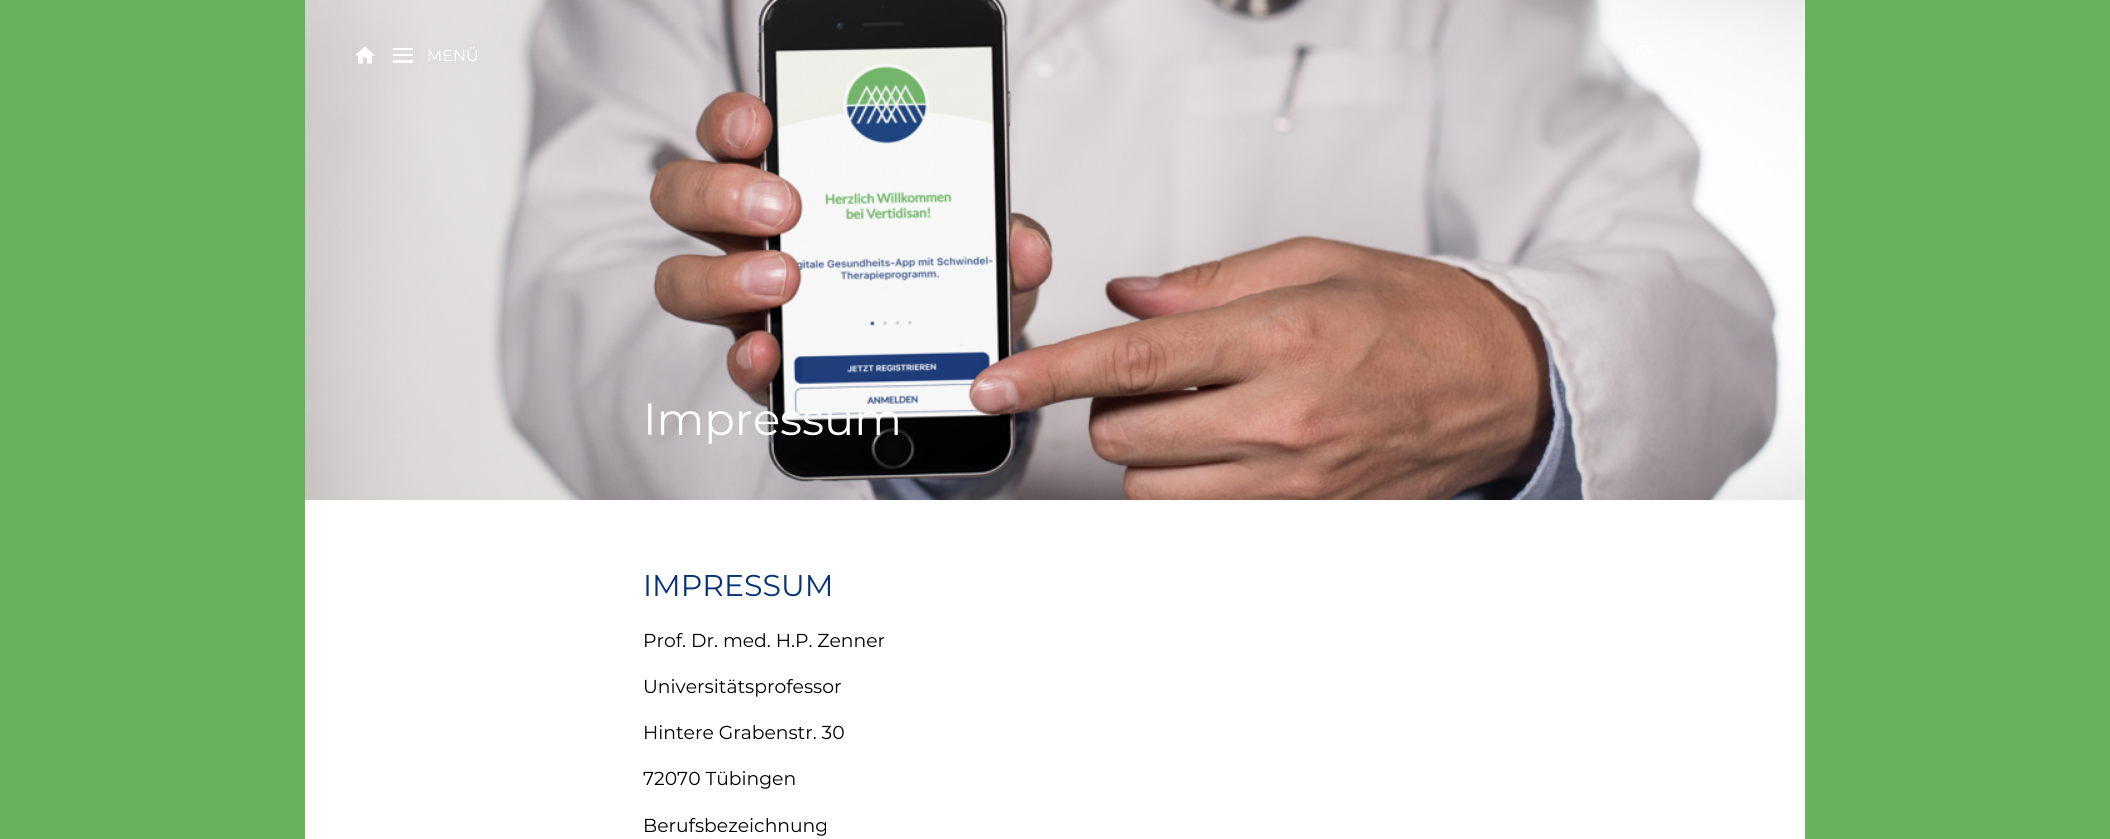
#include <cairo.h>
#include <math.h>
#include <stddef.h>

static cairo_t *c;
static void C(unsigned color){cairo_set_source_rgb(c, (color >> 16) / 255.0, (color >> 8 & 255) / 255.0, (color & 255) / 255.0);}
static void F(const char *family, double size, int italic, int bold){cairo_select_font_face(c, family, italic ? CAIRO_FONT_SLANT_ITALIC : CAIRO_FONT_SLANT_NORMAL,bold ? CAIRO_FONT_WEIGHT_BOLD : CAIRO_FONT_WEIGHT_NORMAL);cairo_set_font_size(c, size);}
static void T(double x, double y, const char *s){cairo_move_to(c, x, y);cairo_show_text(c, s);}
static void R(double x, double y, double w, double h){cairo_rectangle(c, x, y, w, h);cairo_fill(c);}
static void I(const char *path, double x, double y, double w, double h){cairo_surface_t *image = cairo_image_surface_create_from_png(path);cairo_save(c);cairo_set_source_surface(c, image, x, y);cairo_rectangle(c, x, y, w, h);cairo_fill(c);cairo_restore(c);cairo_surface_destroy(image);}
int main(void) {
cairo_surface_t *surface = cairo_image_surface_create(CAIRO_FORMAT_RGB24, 2110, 839);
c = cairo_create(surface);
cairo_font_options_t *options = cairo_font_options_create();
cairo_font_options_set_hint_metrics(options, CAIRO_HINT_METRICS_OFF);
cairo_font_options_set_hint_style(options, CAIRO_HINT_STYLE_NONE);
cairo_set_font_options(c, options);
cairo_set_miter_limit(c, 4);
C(0x68b25d);
cairo_paint(c);
I("1.png",305,0,1500,500);
I("2.png",355,46,20,18);
C(0xffffff);
R(393,48,20,2);
F("Montserrat",16,0,0);
T(427,61,"MENÜ");
R(393,54,20,2);
R(393,60,20,3);
I("3.png",1637,45,14,8);
F("Montserrat",45,0,0);
T(643,435,"Impressum");
R(305,500,1500,339);
F("Montserrat",30,0,0);
C(0x073277);
T(643,596,"IMPRESSUM");
F("Montserrat",18.75,0,0);
C(0x000000);
T(643,647,"Prof. Dr. med. H.P. Zenner");
T(643,693,"Universitätsprofessor");
T(643,739,"Hintere Grabenstr. 30");
T(643,785,"72070 Tübingen");
T(643,832,"Berufsbezeichnung");
cairo_surface_write_to_png(surface, "o.png");
cairo_font_options_destroy(options);
cairo_destroy(c);
cairo_surface_destroy(surface);
return 0;
}
